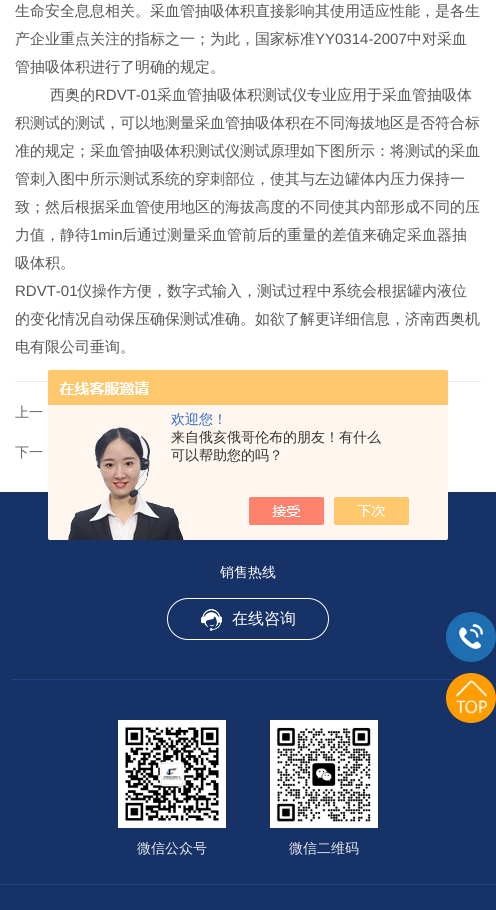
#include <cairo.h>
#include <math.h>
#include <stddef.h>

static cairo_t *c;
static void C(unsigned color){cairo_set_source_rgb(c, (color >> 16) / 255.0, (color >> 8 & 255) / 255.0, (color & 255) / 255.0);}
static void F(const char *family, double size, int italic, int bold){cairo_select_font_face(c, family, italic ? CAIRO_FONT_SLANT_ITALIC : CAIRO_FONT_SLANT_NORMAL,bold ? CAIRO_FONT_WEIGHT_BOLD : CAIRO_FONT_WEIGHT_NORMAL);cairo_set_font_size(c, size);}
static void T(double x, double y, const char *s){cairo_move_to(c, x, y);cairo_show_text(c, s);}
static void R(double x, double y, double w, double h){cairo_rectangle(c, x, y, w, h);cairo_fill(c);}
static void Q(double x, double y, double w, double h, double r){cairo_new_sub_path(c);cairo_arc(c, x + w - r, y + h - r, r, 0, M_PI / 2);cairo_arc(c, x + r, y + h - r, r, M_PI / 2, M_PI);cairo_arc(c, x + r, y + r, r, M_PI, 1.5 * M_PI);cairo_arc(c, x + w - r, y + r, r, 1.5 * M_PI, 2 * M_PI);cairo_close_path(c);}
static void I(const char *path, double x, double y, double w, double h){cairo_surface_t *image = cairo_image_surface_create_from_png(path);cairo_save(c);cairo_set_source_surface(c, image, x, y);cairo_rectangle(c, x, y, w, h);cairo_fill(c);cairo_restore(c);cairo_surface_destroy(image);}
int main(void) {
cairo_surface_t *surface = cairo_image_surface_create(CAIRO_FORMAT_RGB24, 496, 910);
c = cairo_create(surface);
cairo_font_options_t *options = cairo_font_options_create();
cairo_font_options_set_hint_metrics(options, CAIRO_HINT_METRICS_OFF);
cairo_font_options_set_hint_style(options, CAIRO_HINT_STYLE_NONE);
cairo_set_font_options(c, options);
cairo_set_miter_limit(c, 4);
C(0xffffff);
cairo_paint(c);
F("WenQuanYi Zen Hei Medium",15,0,0);
C(0x565656);
T(15,16,"生命安全息息相关。采血管抽吸体积直接影响其使用适应性能，是各生");
T(15,44,"产企业重点关注的指标之一；为此，国家标准");
F("Liberation Sans",15,0,0);
T(315,44,"YY0314-2007");
F("WenQuanYi Zen Hei Medium",15,0,0);
T(407,44,"中对采血");
T(15,72,"管抽吸体积进行了明确的规定。");
T(50,100,"西奥的");
F("Liberation Sans",15,0,0);
T(95,100,"RDVT-01");
F("WenQuanYi Zen Hei Medium",15,0,0);
T(157,100,"采血管抽吸体积测试仪专业应用于采血管抽吸体");
T(15,128,"积测试的测试，可以地测量采血管抽吸体积在不同海拔地区是否符合标");
T(15,156,"准的规定；采血管抽吸体积测试仪测试原理如下图所示：将测试的采血");
T(15,184,"管刺入图中所示测试系统的穿刺部位，使其与左边罐体内压力保持一");
T(15,212,"致；然后根据采血管使用地区的海拔高度的不同使其内部形成不同的压");
T(15,240,"力值，静待");
F("Liberation Sans",15,0,0);
T(90,240,"1min");
F("WenQuanYi Zen Hei Medium",15,0,0);
T(122,240,"后通过测量采血管前后的重量的差值来确定采血器抽");
T(15,268,"吸体积。");
F("Liberation Sans",15,0,0);
T(15,296,"RDVT-01");
F("WenQuanYi Zen Hei Medium",15,0,0);
T(77,296,"仪操作方便，数字式输入，测试过程中系统会根据罐内液位");
T(15,324,"的变化情况自动保压确保测试准确。如欲了解更详细信息，济南西奥机");
T(15,352,"电有限公司垂询。");
C(0xeaeaea);
R(15,381,466,1);
F("WenQuanYi Zen Hei Medium",14,0,0);
C(0x666666);
T(15,417,"上一");
T(15,457,"下一");
C(0x173266);
R(0,492,496,418);
I("1.png",48,370,400,170);
C(0x2e6ec6);
T(171,424,"欢迎您！");
C(0x333333);
T(171,442,"来自俄亥俄哥伦布的朋友！有什么");
T(171,460,"可以帮助您的吗？");
C(0x1e4285);
R(12,679,443,1);
C(0xffffff);
T(220,577,"销售热线");
Q(167.5,598.5,161,41,20.5);
cairo_set_line_width(c,1);
cairo_stroke(c);
I("2.png",201,609,21,22);
F("WenQuanYi Zen Hei Medium",16,0,0);
T(232,624,"在线咨询");
I("3.png",118,720,108,108);
F("WenQuanYi Zen Hei Medium",14,0,0);
C(0xe8ebf0);
T(137,853,"微信公众号");
I("4.png",270,720,108,108);
T(289,853,"微信二维码");
C(0x1e4285);
R(0,884,496,1);
C(0x1f6eb1);
cairo_new_path(c);
cairo_arc(c,471,637,25,0,2 * M_PI);
cairo_fill(c);
I("5.png",459,624,24,25);
C(0xfe9c00);
cairo_arc(c,471,698,25,0,2 * M_PI);
cairo_fill(c);
I("6.png",456,680,31,34);
cairo_surface_write_to_png(surface, "o.png");
cairo_font_options_destroy(options);
cairo_destroy(c);
cairo_surface_destroy(surface);
return 0;
}
